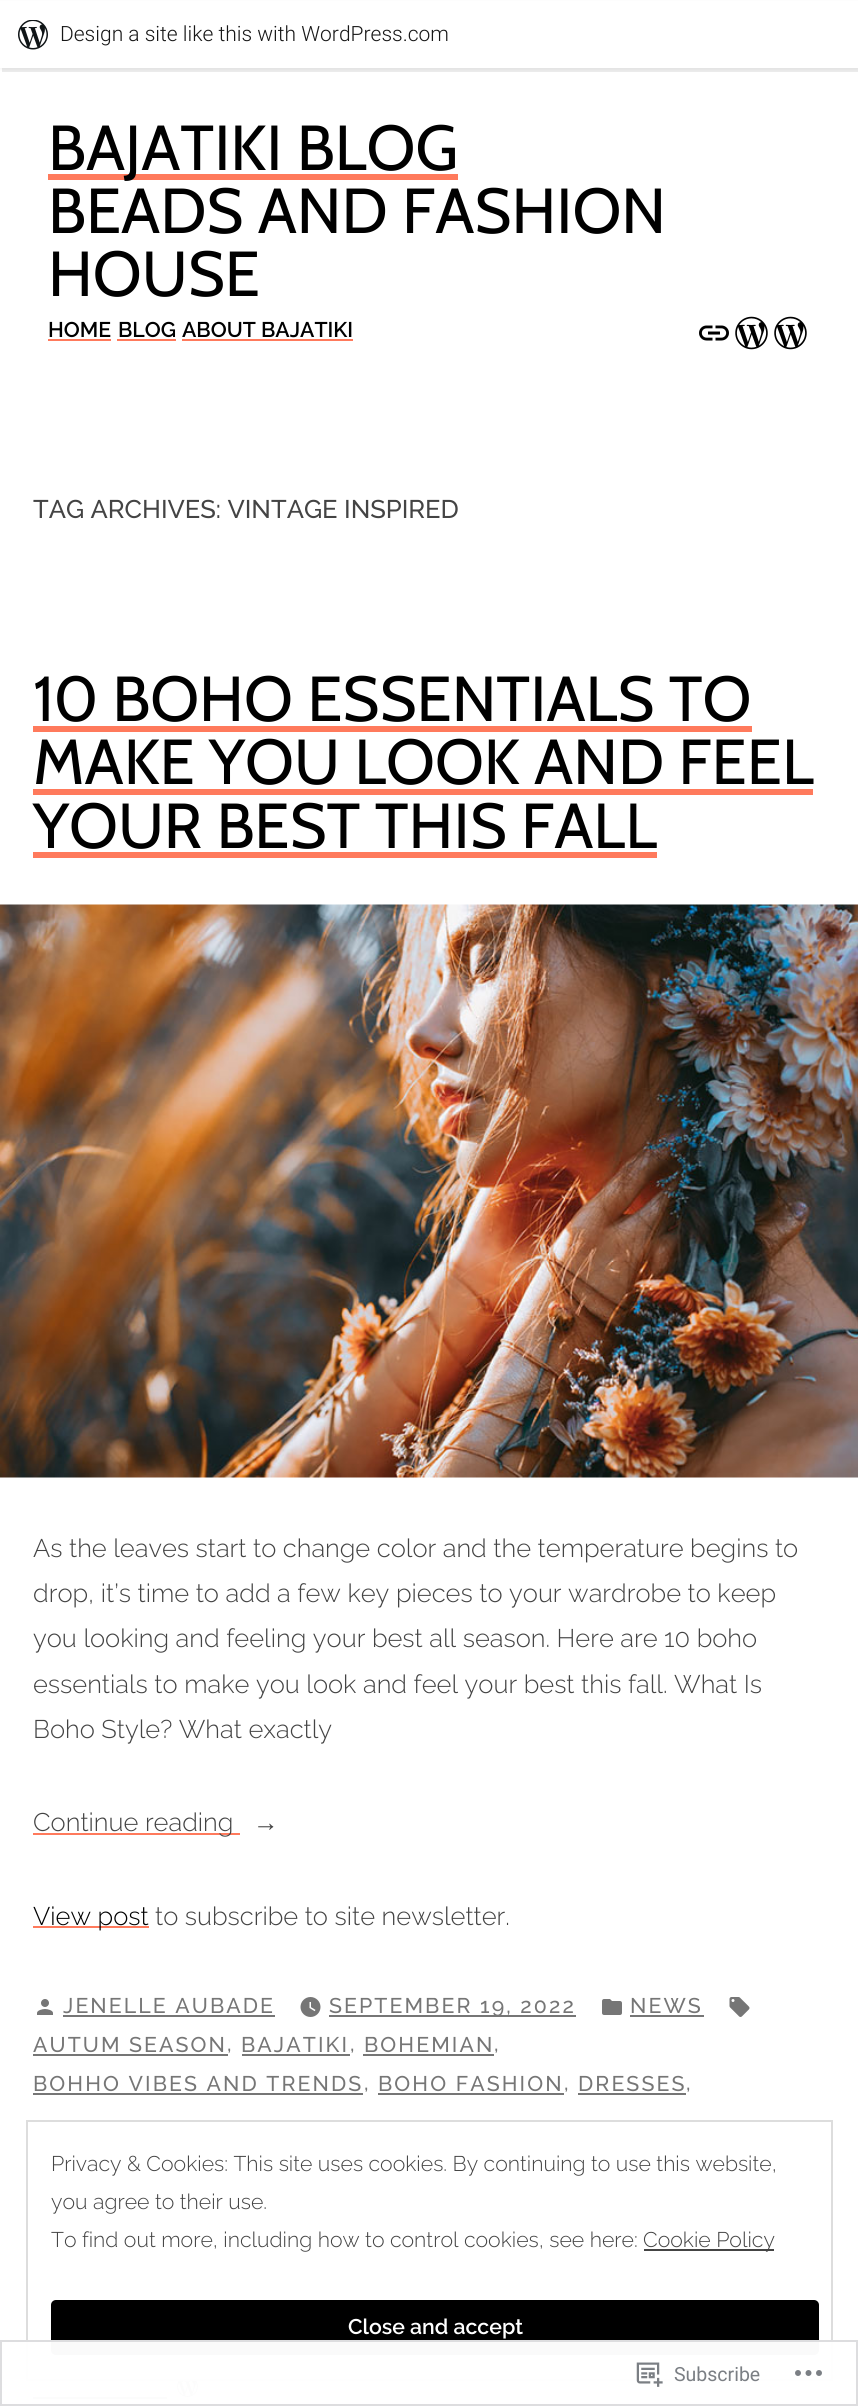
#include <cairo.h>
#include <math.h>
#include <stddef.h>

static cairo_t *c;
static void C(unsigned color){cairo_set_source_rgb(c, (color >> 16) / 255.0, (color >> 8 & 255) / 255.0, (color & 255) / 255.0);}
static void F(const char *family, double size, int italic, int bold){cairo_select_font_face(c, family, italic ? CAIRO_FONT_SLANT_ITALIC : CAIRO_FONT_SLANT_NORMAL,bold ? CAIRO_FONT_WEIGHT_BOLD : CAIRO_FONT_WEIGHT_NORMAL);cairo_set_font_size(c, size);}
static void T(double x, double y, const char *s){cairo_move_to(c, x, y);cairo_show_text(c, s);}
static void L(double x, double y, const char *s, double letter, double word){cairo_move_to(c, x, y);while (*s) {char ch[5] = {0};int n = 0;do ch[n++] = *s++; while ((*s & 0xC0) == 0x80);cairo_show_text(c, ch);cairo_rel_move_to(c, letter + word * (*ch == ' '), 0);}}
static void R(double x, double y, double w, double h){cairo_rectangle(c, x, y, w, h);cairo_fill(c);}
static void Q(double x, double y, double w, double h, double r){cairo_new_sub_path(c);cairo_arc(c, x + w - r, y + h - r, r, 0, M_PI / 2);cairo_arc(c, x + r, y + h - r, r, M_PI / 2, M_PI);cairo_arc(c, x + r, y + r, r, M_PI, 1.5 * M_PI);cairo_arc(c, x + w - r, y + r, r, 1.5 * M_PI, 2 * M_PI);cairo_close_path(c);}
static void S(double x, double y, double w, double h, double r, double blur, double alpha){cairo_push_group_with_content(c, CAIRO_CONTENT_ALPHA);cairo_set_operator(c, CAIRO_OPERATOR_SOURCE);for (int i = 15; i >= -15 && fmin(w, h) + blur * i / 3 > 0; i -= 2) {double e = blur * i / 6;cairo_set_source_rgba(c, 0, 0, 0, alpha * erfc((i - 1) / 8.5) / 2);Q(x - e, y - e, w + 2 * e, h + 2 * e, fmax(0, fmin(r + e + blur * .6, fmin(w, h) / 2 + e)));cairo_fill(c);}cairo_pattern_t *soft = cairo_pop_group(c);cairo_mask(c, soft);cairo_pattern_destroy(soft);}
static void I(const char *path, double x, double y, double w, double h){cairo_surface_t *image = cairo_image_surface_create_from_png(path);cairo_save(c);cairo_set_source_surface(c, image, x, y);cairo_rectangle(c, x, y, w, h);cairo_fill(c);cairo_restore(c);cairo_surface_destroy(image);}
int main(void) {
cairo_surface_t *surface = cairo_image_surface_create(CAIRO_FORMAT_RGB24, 858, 2406);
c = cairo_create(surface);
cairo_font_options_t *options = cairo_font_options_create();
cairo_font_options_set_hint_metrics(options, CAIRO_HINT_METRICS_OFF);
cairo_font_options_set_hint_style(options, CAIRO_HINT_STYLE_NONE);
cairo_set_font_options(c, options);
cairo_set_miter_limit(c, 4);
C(0xffffff);
cairo_paint(c);
C(0x000000);
S(0,2,858,67,0,1.5,.05);
cairo_set_source_rgba(c,0,0,0,0.08);
cairo_new_path(c);
cairo_move_to(c,2,68);
cairo_line_to(c,2,72);
cairo_line_to(c,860,72);
cairo_line_to(c,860,5);
cairo_line_to(c,858,5);
cairo_line_to(c,858,68);
cairo_close_path(c);
cairo_fill(c);
C(0xffffff);
R(0,1,858,67);
I("1.png",18,20,30,30);
F("Roboto Light",21,0,0);
C(0x171717);
T(60,41,"Design a site like this with WordPress.com");
C(0xff7a5c);
R(48,174,410,6);
F("Cabin",63.5,0,0);
C(0x000000);
T(48,170,"BAJATIKI BLOG");
T(48,233,"BEADS AND FASHION");
T(48,296,"HOUSE");
F("Raleway SemiBold",21.25,0,0);
T(48,337,"HOME");
C(0xff7a5c);
R(48,339,63,2);
C(0x000000);
T(118,337,"BLOG");
C(0xff7a5c);
R(117,339,59,2);
C(0x000000);
T(182,337,"ABOUT BAJATIKI");
C(0xff7a5c);
R(182,339,171,2);
I("2.png",699,325,30,16);
I("3.png",735,316,33,34);
I("3.png",774,316,33,34);
F("Raleway Medium",25.5,0,0);
C(0x444444);
T(33,518,"TAG ARCHIVES: VINTAGE INSPIRED");
F("Cabin",63.5,0,0);
C(0x000000);
T(33,721,"10 BOHO ESSENTIALS TO");
C(0xff7a5c);
R(33,726,719,6);
C(0x000000);
T(33,784,"MAKE YOU LOOK AND FEEL");
C(0xff7a5c);
R(33,789,780,6);
C(0x000000);
T(33,848,"YOUR BEST THIS FALL");
C(0xff7a5c);
R(33,852,624,6);
I("4.png",0,904,858,574);
F("Raleway Light",25.5,0,0);
C(0x444444);
T(33,1557,"As the leaves start to change color and the temperature begins to");
T(33,1602,"drop, it’s time to add a few key pieces to your wardrobe to keep");
T(33,1647,"you looking and feeling your best all season. Here are 10 boho");
T(33,1693,"essentials to make you look and feel your best this fall. What Is");
T(33,1738,"Boho Style? What exactly");
C(0xff7a5c);
R(33,1833,207,2);
C(0x444444);
T(33,1831,"Continue reading");
F("Liberation Serif",25.5,0,0);
T(253,1831,"→");
C(0xff7a5c);
R(33,1926,116,2);
F("Raleway Light",25.5,0,0);
C(0x000000);
T(33,1925,"View post");
C(0x444444);
T(155,1925,"to subscribe to site newsletter.");
I("5.png",37,1999,16,16);
F("Raleway Medium",21.25,0,0);
C(0x767676);
L(63,2013,"JENELLE AUBADE",2.1,0);
R(63,2015,212,2);
I("6.png",300,1997,21,20);
R(329,2015,247,2);
L(329,2013,"SEPTEMBER 19, 2022",2.1,0);
I("7.png",602,1999,20,16);
L(630,2013,"NEWS",2.1,0);
R(630,2015,74,2);
I("8.png",729,1997,21,20);
L(33,2052,"AUTUM SEASON",2.1,0);
R(33,2054,195,2);
L(227,2051,",",2.1,0);
L(241,2052,"BAJATIKI",2.1,0);
R(242,2054,108,2);
L(350,2051,",",2.1,0);
L(364,2052,"BOHEMIAN",2.1,0);
R(363,2054,131,2);
L(494,2051,",",2.1,0);
L(33,2091,"BOHHO VIBES AND TRENDS",2.1,0);
R(33,2093,330,2);
L(364,2090,",",2.1,0);
L(378,2091,"BOHO FASHION",2.1,0);
R(378,2093,186,2);
L(564,2090,",",2.1,0);
L(578,2091,"DRESSES",2.1,0);
R(578,2093,108,2);
L(686,2090,",",2.1,0);
I("9.png",177,2381,21,16);
R(33,2397,134,2);
cairo_rectangle(c,27,2121,805,259);
C(0xdddddd);
cairo_stroke(c);
F("Raleway Light",21.25,0,0);
C(0x444444);
T(51,2171,"Privacy & Cookies: This site uses cookies. By continuing to use this website,");
T(51,2209,"you agree to their use.");
T(51,2247,"To find out more, including how to control cookies, see here:");
R(644,2249,130,2);
T(643,2247,"Cookie Policy");
C(0x000000);
Q(51,2300,768,55,5);
cairo_fill(c);
F("Raleway SemiBold",21.25,0,0);
C(0xffffff);
T(348,2334,"Close and accept");
cairo_set_source_rgba(c,1,1,1,0.98);
R(26,2340,807,59);
cairo_rectangle(c,1,2341,856,64);
cairo_set_source_rgba(c,0.863,0.863,0.871,0.98);
cairo_stroke(c);
I("10.png",636,2362,27,25);
F("Roboto",19.5,0,0);
C(0x7b7f84);
T(674,2381,"Subscribe");
I("11.png",795,2370,27,6);
cairo_surface_write_to_png(surface, "o.png");
cairo_font_options_destroy(options);
cairo_destroy(c);
cairo_surface_destroy(surface);
return 0;
}
